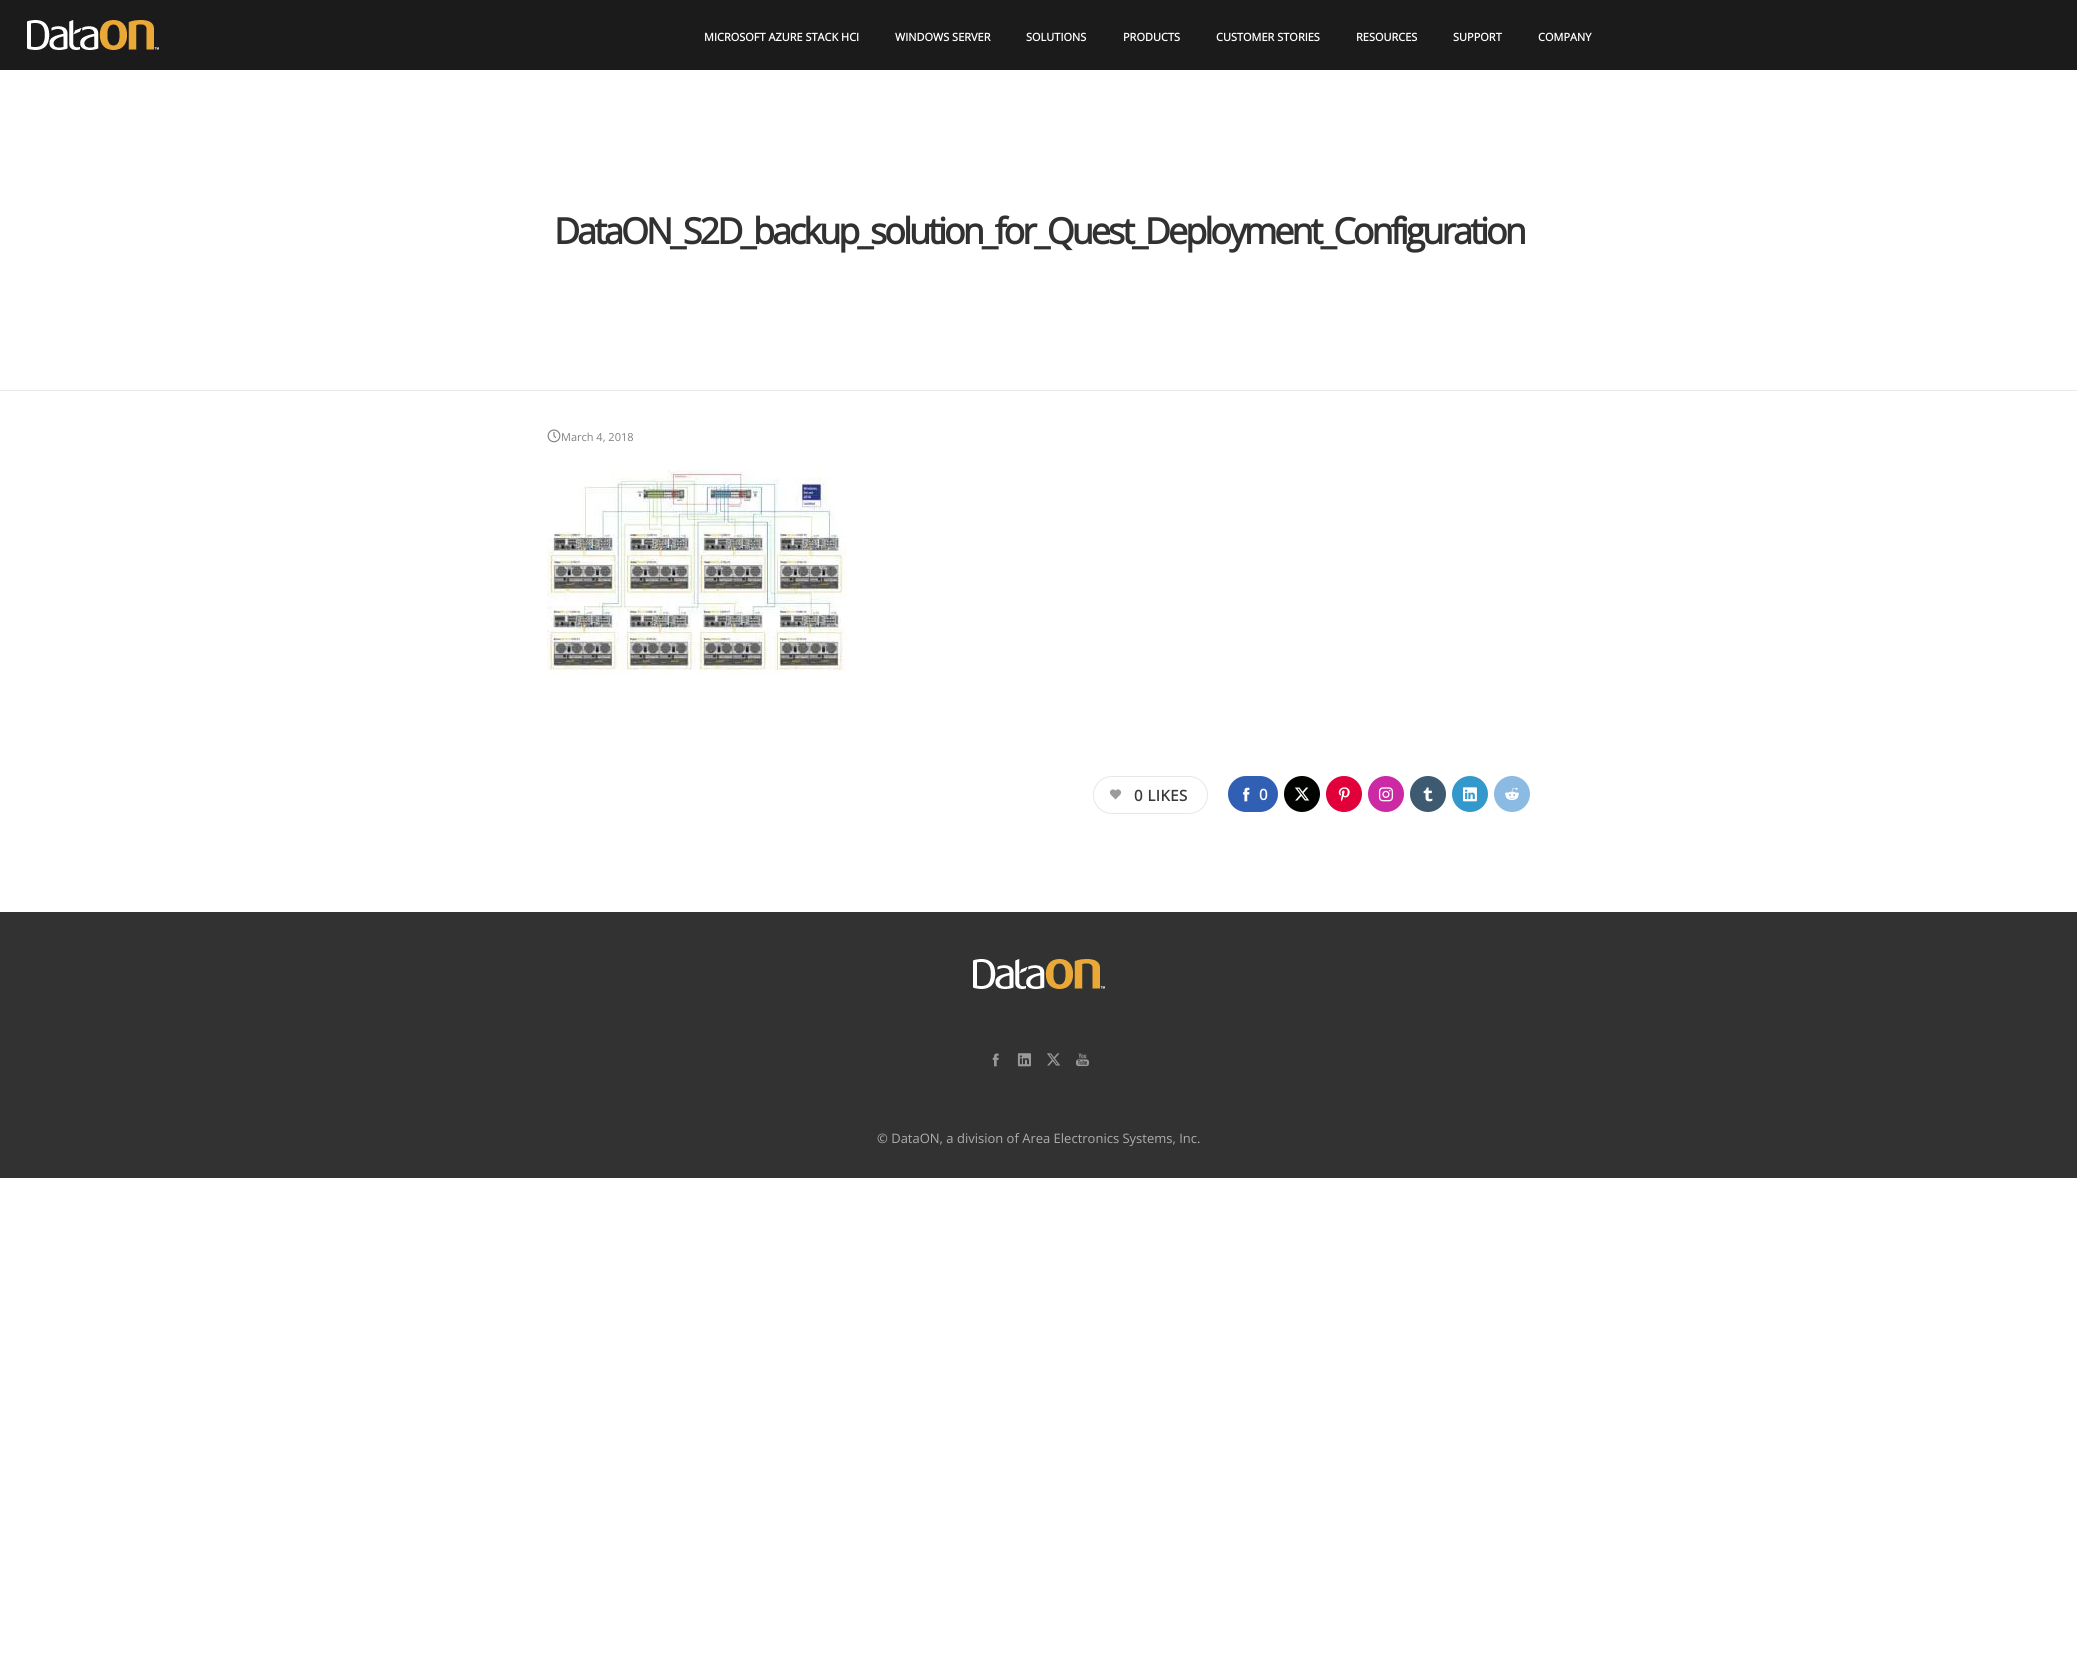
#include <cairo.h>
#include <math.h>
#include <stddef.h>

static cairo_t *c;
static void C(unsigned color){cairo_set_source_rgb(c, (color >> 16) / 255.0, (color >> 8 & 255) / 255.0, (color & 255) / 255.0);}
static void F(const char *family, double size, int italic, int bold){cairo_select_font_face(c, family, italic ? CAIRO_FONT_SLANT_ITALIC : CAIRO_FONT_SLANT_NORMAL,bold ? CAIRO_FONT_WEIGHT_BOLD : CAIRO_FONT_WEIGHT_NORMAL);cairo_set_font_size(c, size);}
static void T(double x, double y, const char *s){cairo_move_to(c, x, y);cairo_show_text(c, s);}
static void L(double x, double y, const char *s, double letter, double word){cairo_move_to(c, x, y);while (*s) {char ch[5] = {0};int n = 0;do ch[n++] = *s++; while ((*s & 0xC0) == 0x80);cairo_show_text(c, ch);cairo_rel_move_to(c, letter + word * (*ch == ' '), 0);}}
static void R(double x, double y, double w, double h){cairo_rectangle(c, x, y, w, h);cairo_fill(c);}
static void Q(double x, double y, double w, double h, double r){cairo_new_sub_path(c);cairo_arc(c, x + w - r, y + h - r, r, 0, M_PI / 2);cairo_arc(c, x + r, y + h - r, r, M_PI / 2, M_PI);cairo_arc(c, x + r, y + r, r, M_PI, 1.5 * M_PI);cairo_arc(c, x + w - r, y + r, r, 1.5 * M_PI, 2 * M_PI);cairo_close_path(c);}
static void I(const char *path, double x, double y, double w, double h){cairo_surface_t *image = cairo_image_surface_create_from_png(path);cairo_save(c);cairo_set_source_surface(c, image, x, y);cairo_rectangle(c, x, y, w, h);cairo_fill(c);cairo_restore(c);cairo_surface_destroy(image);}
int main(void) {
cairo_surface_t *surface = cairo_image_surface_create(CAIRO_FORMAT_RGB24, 2077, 1655);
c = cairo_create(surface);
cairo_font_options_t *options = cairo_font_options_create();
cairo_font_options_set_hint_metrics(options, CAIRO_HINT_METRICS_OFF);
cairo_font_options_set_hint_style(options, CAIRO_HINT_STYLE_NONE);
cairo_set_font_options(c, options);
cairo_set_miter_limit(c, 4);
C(0xffffff);
cairo_paint(c);
C(0x1b1b1b);
R(0,0,2077,70);
I("1.png",27,20,132,30);
F("Open Sans",11,0,1);
C(0xffffff);
T(704,41,"MICROSOFT AZURE STACK HCI");
T(895,41,"WINDOWS SERVER");
T(1026,41,"SOLUTIONS");
T(1123,41,"PRODUCTS");
T(1216,41,"CUSTOMER STORIES");
T(1356,41,"RESOURCES");
T(1453,41,"SUPPORT");
T(1538,41,"COMPANY");
F("Open Sans",36,0,1);
C(0x313131);
L(554,244,"DataON_S2D_backup_solution_for_Quest_Deployment_Configuration",-3,0);
C(0xe8e8e8);
R(0,390,2077,1);
I("2.png",547,429,14,14);
F("Open Sans",11,0,0);
C(0x808080);
T(561,441,"March 4, 2018");
I("3.png",547,470,300,204);
I("4.png",1109,789,13,11);
Q(1093.5,776.5,114,37,18.5);
C(0xe7e7e7);
cairo_set_line_width(c,1);
cairo_stroke(c);
F("Open Sans",15,0,1);
C(0x393939);
L(1134,801,"0 LIKES",.5,0);
C(0x305fb3);
Q(1228,776,50,36,18);
cairo_fill(c);
I("5.png",1243,787,7,15);
C(0xffffff);
L(1259,800,"0",.5,0);
C(0x010300);
cairo_new_path(c);
cairo_arc(c,1302,794,18,0,2 * M_PI);
cairo_fill(c);
I("6.png",1295,787,15,14);
C(0xe1003a);
cairo_arc(c,1344,794,18,0,2 * M_PI);
cairo_fill(c);
I("7.png",1338,787,12,15);
C(0xcc29a5);
cairo_arc(c,1386,794,18,0,2 * M_PI);
cairo_fill(c);
I("8.png",1378,787,15,15);
C(0x3d5a70);
cairo_arc(c,1428,794,18,0,2 * M_PI);
cairo_fill(c);
I("9.png",1423,787,10,15);
C(0x3399cc);
cairo_arc(c,1470,794,18,0,2 * M_PI);
cairo_fill(c);
I("10.png",1463,787,14,15);
C(0x8bbbe3);
cairo_arc(c,1512,794,18,0,2 * M_PI);
cairo_fill(c);
I("11.png",1505,787,14,13);
C(0x323232);
R(0,912,2077,266);
I("12.png",973,959,132,30);
I("13.png",992,1053,7,14);
I("14.png",1017,1053,14,14);
I("15.png",1047,1053,14,13);
I("16.png",1076,1053,13,14);
F("Open Sans",13,0,0);
C(0xadadad);
T(877,1143,"© DataON, a division of Area Electronics Systems, Inc.");
cairo_surface_write_to_png(surface, "o.png");
cairo_font_options_destroy(options);
cairo_destroy(c);
cairo_surface_destroy(surface);
return 0;
}
